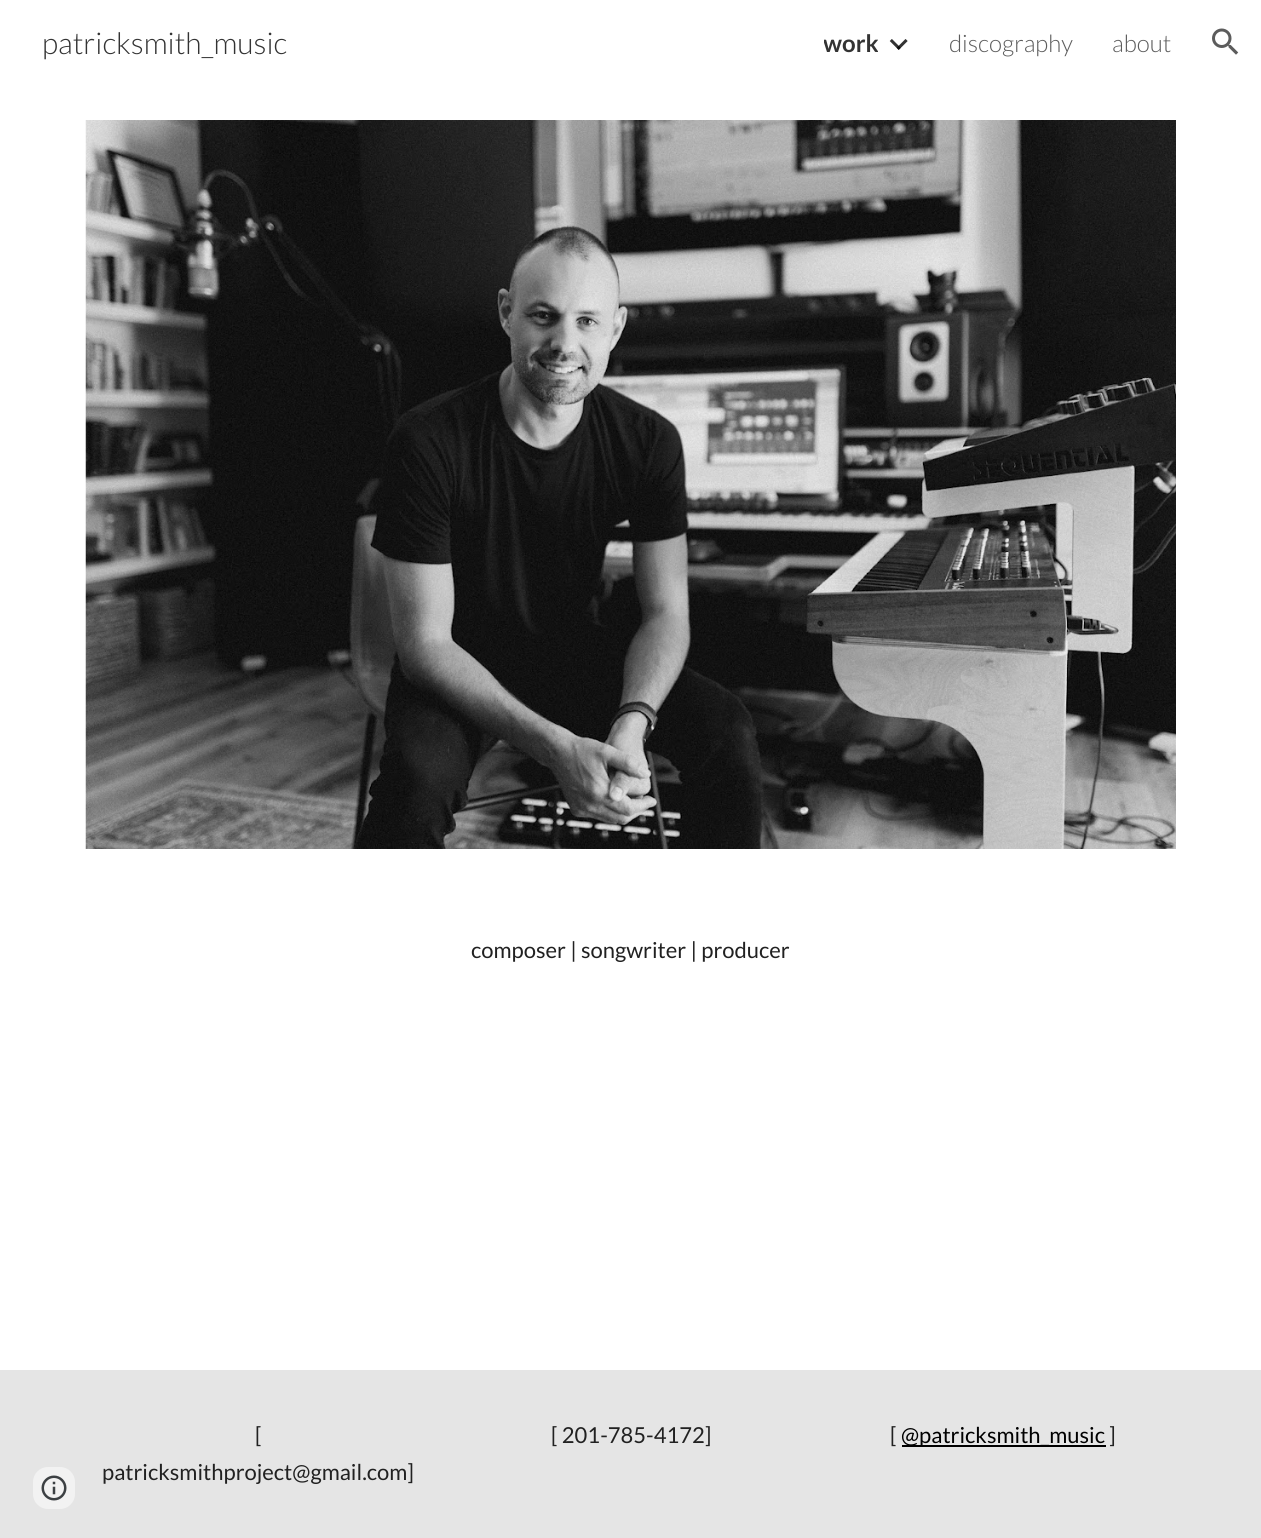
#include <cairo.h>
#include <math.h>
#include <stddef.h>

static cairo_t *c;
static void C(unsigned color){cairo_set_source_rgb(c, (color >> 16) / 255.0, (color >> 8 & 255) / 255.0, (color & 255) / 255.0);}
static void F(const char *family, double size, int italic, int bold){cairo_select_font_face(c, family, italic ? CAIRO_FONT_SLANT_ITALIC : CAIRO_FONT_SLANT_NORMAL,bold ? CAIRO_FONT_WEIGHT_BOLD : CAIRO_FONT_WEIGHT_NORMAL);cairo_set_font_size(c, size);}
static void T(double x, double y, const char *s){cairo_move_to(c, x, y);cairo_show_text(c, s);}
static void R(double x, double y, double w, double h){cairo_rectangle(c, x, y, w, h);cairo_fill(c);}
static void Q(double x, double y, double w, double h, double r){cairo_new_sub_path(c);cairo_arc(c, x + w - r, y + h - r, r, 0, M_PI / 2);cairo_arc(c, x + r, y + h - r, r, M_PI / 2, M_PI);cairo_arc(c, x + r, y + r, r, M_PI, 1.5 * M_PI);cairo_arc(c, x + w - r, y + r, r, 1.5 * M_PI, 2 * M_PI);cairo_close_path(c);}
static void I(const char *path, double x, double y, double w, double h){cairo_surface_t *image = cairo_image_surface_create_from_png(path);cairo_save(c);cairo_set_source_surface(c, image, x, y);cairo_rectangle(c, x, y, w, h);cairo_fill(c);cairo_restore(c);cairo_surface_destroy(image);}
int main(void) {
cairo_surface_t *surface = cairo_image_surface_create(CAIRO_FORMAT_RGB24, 1261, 1538);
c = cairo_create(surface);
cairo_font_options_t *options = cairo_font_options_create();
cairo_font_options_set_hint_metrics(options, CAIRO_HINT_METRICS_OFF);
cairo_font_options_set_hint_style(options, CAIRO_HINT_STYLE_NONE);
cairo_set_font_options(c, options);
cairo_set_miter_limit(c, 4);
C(0xffffff);
cairo_paint(c);
F("Lato Light",30,0,0);
C(0x333333);
T(42,54,"patricksmith_music");
cairo_save(c);
cairo_rectangle(c,824,29,55,28);
cairo_clip(c);
F("Lato",24,0,1);
T(823,52,"work");
cairo_restore(c);
I("1.png",889,39,19,11);
F("Lato Light",24,0,0);
C(0x5c5c5c);
T(949,52,"discography");
T(1112,52,"about");
I("2.png",1212,28,27,27);
I("3.png",85,120,1091,729);
F("Lato",22,0,0);
C(0x212121);
T(471,958,"composer | songwriter | producer");
C(0xe5e5e5);
R(0,1370,1261,168);
C(0xf2f2f2);
Q(33,1467,42,42,15);
cairo_fill(c);
I("4.png",41,1475,26,26);
C(0x212121);
T(255,1443,"[");
T(102,1480,"patricksmithproject@gmail.com]");
T(551,1443,"[ 201-785-4172]");
T(890,1443,"[");
C(0x000000);
R(902,1445,204,2);
T(901,1443,"@patricksmith_music");
C(0x212121);
T(1109,1443,"]");
cairo_surface_write_to_png(surface, "o.png");
cairo_font_options_destroy(options);
cairo_destroy(c);
cairo_surface_destroy(surface);
return 0;
}
